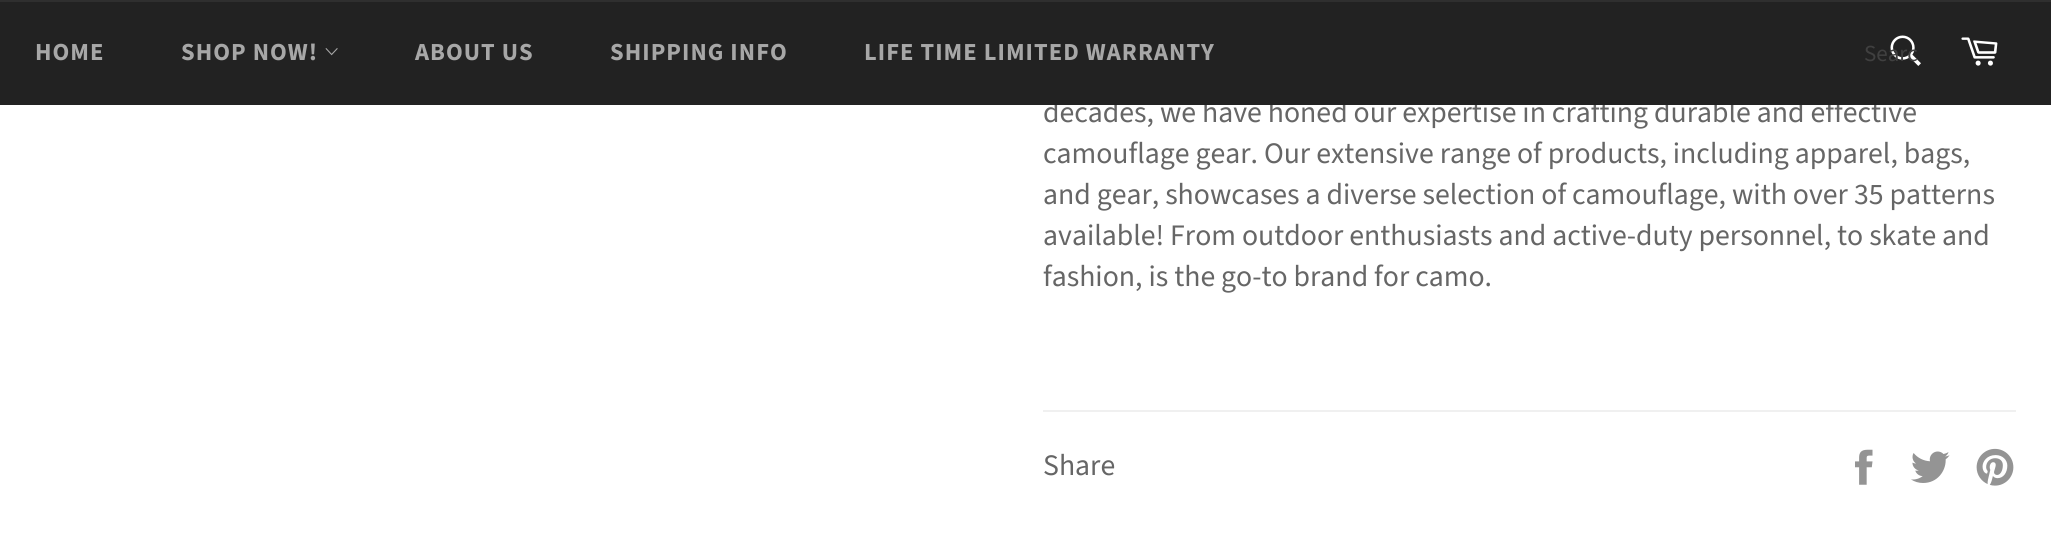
#include <cairo.h>
#include <math.h>
#include <stddef.h>

static cairo_t *c;
static void C(unsigned color){cairo_set_source_rgb(c, (color >> 16) / 255.0, (color >> 8 & 255) / 255.0, (color & 255) / 255.0);}
static void F(const char *family, double size, int italic, int bold){cairo_select_font_face(c, family, italic ? CAIRO_FONT_SLANT_ITALIC : CAIRO_FONT_SLANT_NORMAL,bold ? CAIRO_FONT_WEIGHT_BOLD : CAIRO_FONT_WEIGHT_NORMAL);cairo_set_font_size(c, size);}
static void T(double x, double y, const char *s){cairo_move_to(c, x, y);cairo_show_text(c, s);}
static void L(double x, double y, const char *s, double letter, double word){cairo_move_to(c, x, y);while (*s) {char ch[5] = {0};int n = 0;do ch[n++] = *s++; while ((*s & 0xC0) == 0x80);cairo_show_text(c, ch);cairo_rel_move_to(c, letter + word * (*ch == ' '), 0);}}
static void R(double x, double y, double w, double h){cairo_rectangle(c, x, y, w, h);cairo_fill(c);}
static void I(const char *path, double x, double y, double w, double h){cairo_surface_t *image = cairo_image_surface_create_from_png(path);cairo_save(c);cairo_set_source_surface(c, image, x, y);cairo_rectangle(c, x, y, w, h);cairo_fill(c);cairo_restore(c);cairo_surface_destroy(image);}
int main(void) {
cairo_surface_t *surface = cairo_image_surface_create(CAIRO_FORMAT_RGB24, 2051, 541);
c = cairo_create(surface);
cairo_font_options_t *options = cairo_font_options_create();
cairo_font_options_set_hint_metrics(options, CAIRO_HINT_METRICS_OFF);
cairo_font_options_set_hint_style(options, CAIRO_HINT_STYLE_NONE);
cairo_set_font_options(c, options);
cairo_set_miter_limit(c, 4);
C(0xffffff);
cairo_paint(c);
F("Source Sans Pro",29.75,0,0);
C(0x666666);
T(1043,122,"decades, we have honed our expertise in crafting durable and effective");
C(0x222222);
R(0,2,2051,103);
C(0x2f2f2f);
R(0,0,2051,2);
F("Source Sans Pro",24.5,0,1);
C(0xa7a7a7);
L(35,60,"HOME",1.05,0);
L(181,60,"SHOP NOW!",1.05,0);
I("1.png",325,48,13,8);
L(415,60,"ABOUT US",1.05,0);
L(610,60,"SHIPPING INFO",1.05,0);
L(864,60,"LIFE TIME LIMITED WARRANTY",1.05,0);
I("2.png",1890,35,31,31);
F("Source Sans Pro",23,0,0);
C(0x404040);
T(1864,61,"Searc");
I("3.png",1961,37,37,29);
F("Source Sans Pro",29.75,0,0);
C(0x666666);
T(1043,163,"camouflage gear. Our extensive range of products, including apparel, bags,");
T(1043,204,"and gear, showcases a diverse selection of camouflage, with over 35 patterns");
T(1043,245,"available! From outdoor enthusiasts and active-duty personnel, to skate and");
T(1043,286,"fashion, is the go-to brand for camo.");
C(0xf0f0f0);
R(1043,410,973,2);
C(0x666666);
T(1043,475,"Share");
I("4.png",1855,449,18,36);
I("5.png",1911,451,39,32);
I("6.png",1976,448,38,38);
cairo_surface_write_to_png(surface, "o.png");
cairo_font_options_destroy(options);
cairo_destroy(c);
cairo_surface_destroy(surface);
return 0;
}
